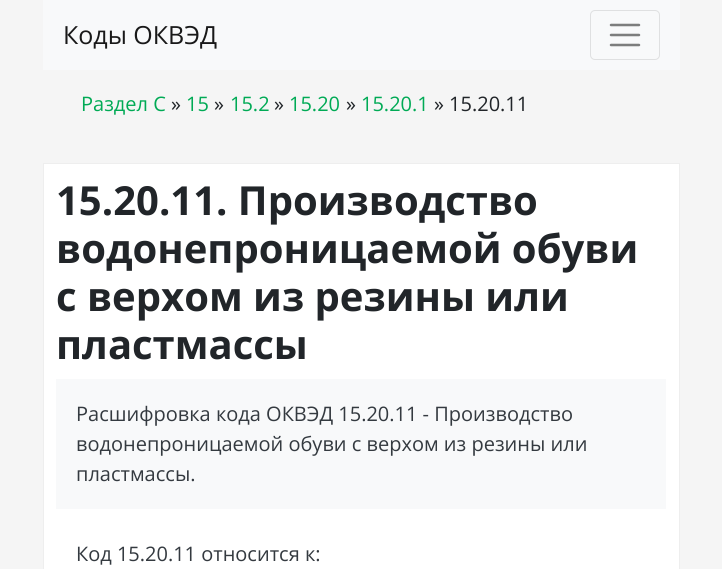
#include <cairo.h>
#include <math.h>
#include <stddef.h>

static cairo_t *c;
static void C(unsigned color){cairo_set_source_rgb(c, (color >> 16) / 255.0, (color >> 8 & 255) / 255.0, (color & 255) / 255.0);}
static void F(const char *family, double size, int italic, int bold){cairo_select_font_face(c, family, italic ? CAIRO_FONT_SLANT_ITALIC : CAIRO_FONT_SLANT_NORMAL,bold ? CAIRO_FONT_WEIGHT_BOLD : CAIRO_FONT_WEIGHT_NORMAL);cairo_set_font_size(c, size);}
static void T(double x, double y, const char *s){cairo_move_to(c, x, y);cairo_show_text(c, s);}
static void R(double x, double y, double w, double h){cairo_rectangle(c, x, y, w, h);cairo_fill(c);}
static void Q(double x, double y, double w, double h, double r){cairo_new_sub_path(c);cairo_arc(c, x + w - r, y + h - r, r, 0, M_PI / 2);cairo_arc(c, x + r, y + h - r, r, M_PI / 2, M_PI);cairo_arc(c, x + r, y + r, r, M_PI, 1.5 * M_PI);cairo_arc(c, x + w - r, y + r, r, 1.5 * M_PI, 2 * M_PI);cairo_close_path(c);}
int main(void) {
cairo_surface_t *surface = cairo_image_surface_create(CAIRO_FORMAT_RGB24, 722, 569);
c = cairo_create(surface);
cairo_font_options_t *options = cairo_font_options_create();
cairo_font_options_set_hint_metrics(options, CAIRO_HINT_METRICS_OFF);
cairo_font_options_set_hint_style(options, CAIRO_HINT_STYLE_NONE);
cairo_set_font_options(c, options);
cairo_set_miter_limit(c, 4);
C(0xf5f5f5);
cairo_paint(c);
C(0xf8f9fa);
R(43,0,637,70);
F("Open Sans",25,0,0);
C(0x191919);
T(63,44,"Коды ОКВЭД");
Q(590.5,10.5,69,49,4.5);
C(0xdfe0e1);
cairo_set_line_width(c,1);
cairo_stroke(c);
cairo_new_path(c);
cairo_move_to(c,611,25);
cairo_line_to(c,639,25);
cairo_move_to(c,611,35);
cairo_line_to(c,639,35);
cairo_move_to(c,611,45);
cairo_line_to(c,639,45);
C(0x7c7d7d);
cairo_set_line_width(c,2.5);
cairo_set_line_cap(c,CAIRO_LINE_CAP_ROUND);
cairo_stroke(c);
F("Open Sans",20,0,0);
C(0x00aa55);
T(81,111,"Раздел C");
C(0x212529);
T(171,111,"»");
C(0x00aa55);
T(186,111,"15");
C(0x212529);
T(214,111,"»");
C(0x00aa55);
T(230,111,"15.2");
C(0x212529);
T(274,111,"»");
C(0x00aa55);
T(289,111,"15.20");
C(0x212529);
T(346,111,"»");
C(0x00aa55);
T(361,111,"15.20.1");
C(0x212529);
T(434,111,"» 15.20.11");
C(0xffffff);
cairo_rectangle(c,43.5,163.5,636,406);
cairo_fill_preserve(c);
C(0xeeeeee);
cairo_set_line_width(c,1);
cairo_set_line_cap(c,CAIRO_LINE_CAP_BUTT);
cairo_stroke(c);
F("Open Sans",40,0,1);
C(0x212529);
T(56,215,"15.20.11. Производство");
T(56,263,"водонепроницаемой обуви");
T(56,311,"с верхом из резины или");
T(56,359,"пластмассы");
C(0xf8f9fa);
R(56,379,610,130);
F("Open Sans",20,0,0);
C(0x343a40);
T(76,421,"Расшифровка кода ОКВЭД 15.20.11 - Производство");
T(76,451,"водонепроницаемой обуви с верхом из резины или");
T(76,481,"пластмассы.");
T(76,561,"Код 15.20.11 относится к:");
cairo_surface_write_to_png(surface, "o.png");
cairo_font_options_destroy(options);
cairo_destroy(c);
cairo_surface_destroy(surface);
return 0;
}
